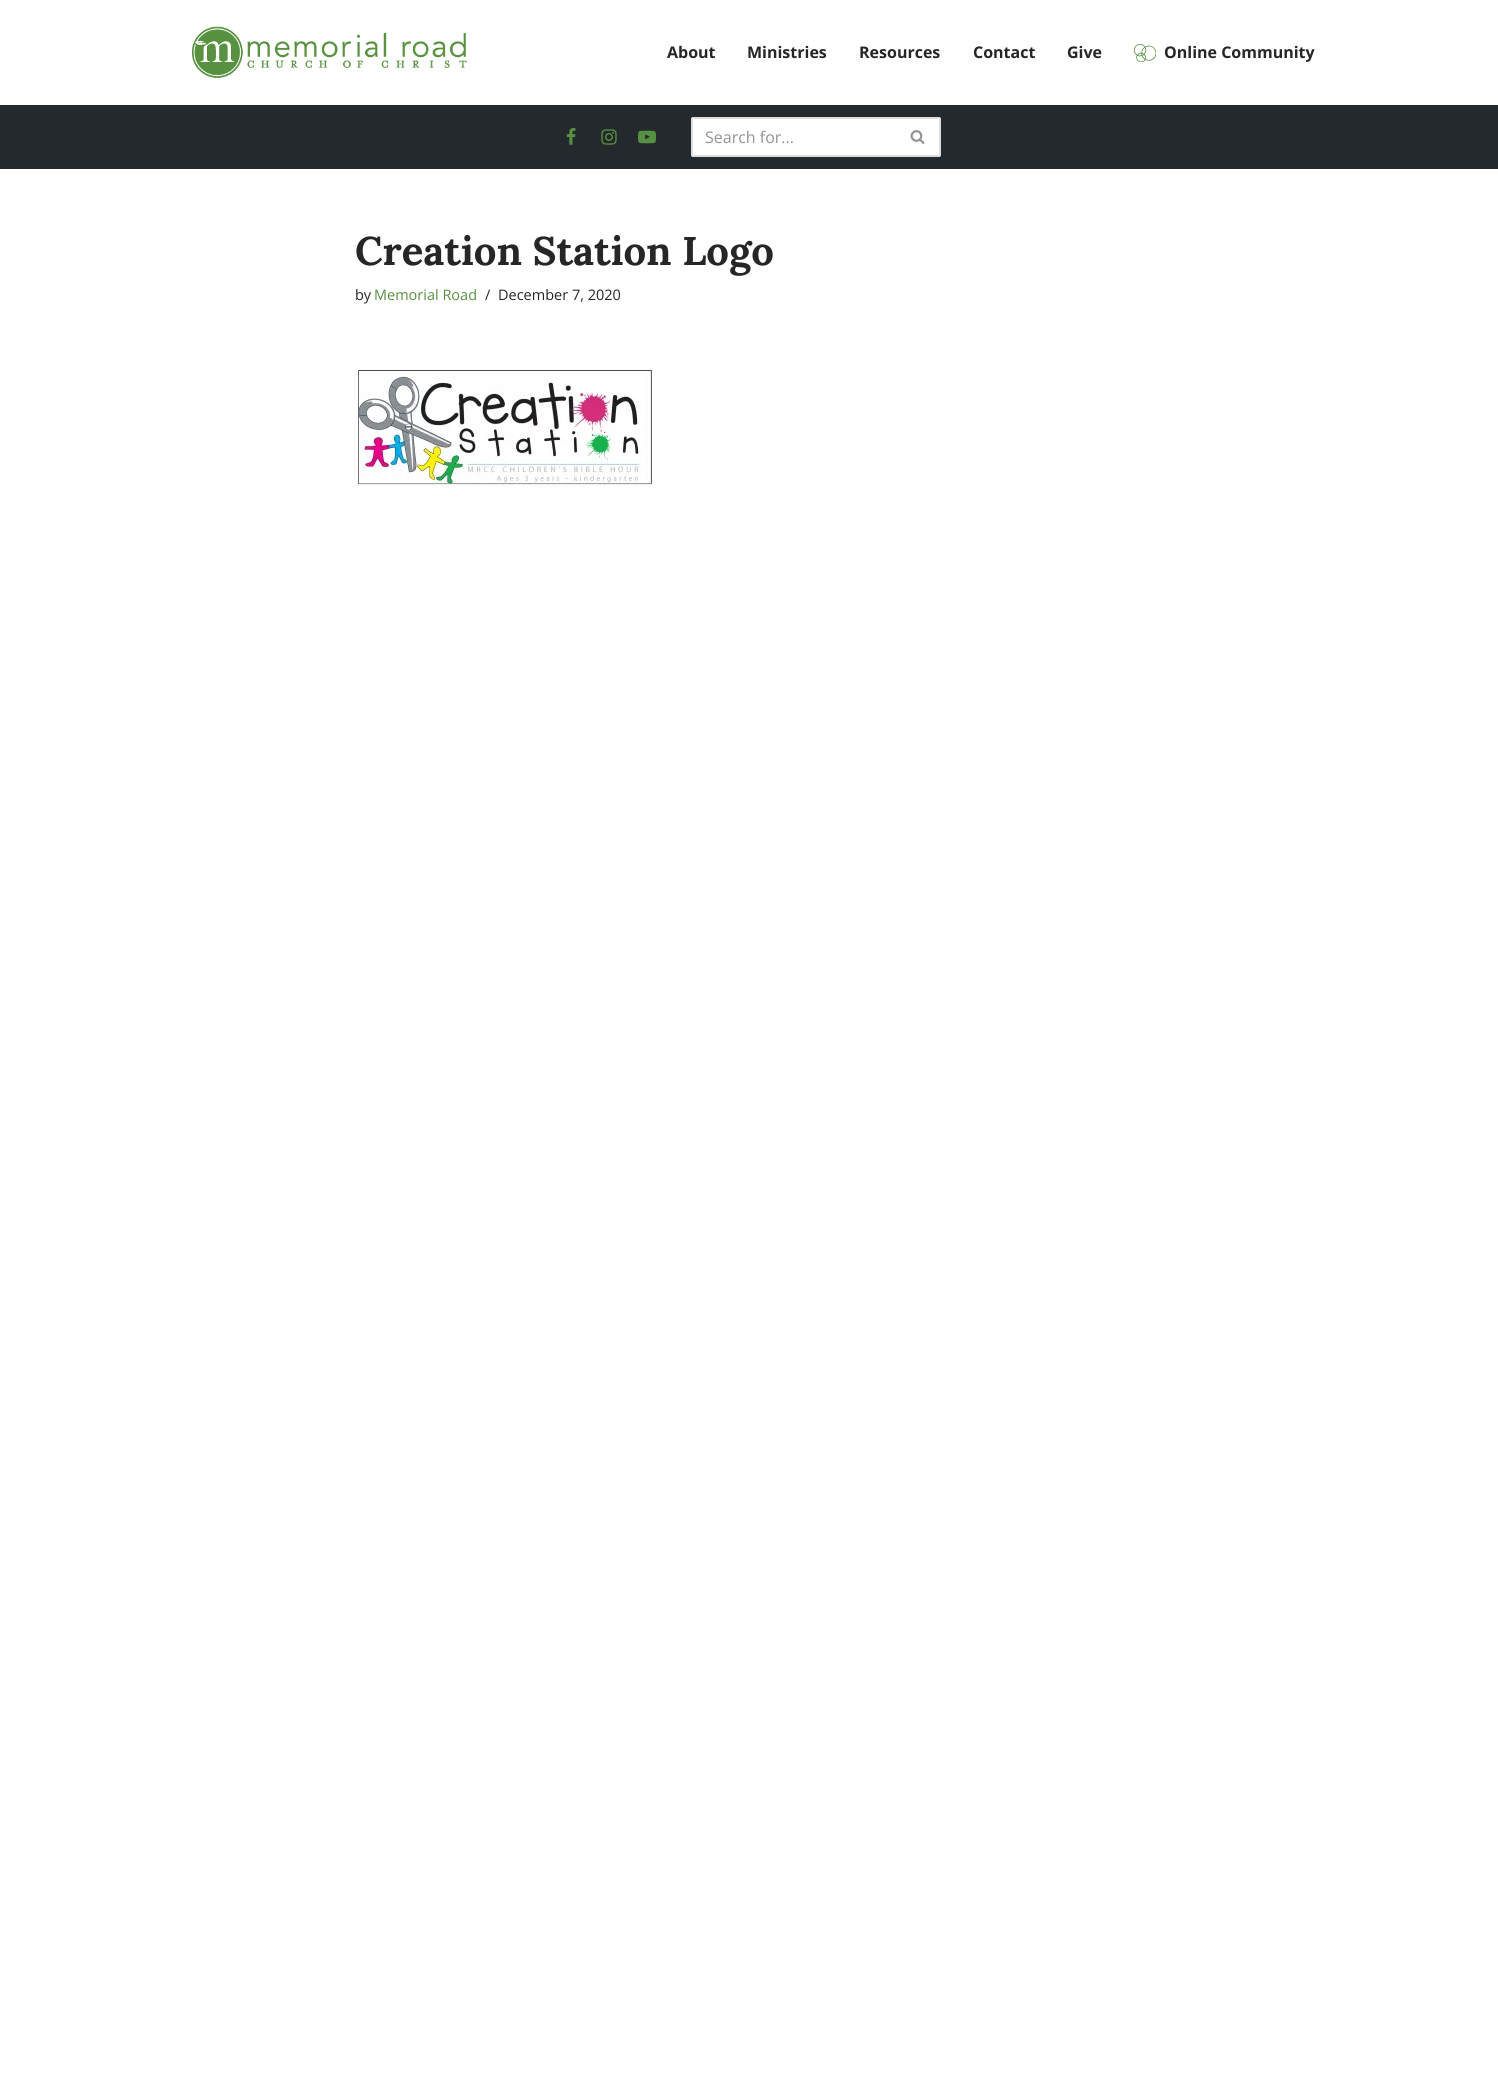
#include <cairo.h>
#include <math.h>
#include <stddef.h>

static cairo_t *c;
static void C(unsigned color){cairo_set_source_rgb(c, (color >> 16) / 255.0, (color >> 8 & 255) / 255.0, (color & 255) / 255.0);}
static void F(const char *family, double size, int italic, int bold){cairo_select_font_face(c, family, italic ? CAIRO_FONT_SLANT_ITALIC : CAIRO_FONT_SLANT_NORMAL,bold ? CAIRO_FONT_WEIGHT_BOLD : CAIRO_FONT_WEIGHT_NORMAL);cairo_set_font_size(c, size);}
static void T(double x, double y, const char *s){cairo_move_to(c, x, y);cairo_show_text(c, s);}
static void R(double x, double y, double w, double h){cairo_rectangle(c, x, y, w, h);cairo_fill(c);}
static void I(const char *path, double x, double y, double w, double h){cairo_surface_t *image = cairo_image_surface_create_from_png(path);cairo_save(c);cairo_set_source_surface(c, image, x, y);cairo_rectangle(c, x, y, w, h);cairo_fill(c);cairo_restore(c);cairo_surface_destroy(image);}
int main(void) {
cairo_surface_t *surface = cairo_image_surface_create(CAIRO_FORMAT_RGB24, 1498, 2073);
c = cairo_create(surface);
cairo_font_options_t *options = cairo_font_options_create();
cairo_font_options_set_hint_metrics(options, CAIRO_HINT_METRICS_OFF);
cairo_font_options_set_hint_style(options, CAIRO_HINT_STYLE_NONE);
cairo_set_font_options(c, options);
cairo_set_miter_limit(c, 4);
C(0xffffff);
cairo_paint(c);
I("1.png",192,26,275,52);
F("Open Sans",16,0,1);
C(0x272626);
T(667,58,"About");
T(747,58,"Ministries");
T(859,58,"Resources");
T(973,58,"Contact");
T(1067,58,"Give");
I("2.png",1134,44,22,18);
T(1164,58,"Online Community");
C(0x24292e);
R(0,105,1498,64);
I("3.png",566,128,10,17);
I("4.png",601,129,16,16);
I("5.png",638,130,18,14);
C(0xffffff);
cairo_new_path(c);
cairo_move_to(c,693,117);
cairo_line_to(c,896,117);
cairo_line_to(c,896,157);
cairo_line_to(c,693,157);
cairo_curve_to(c,692,157,691,156,691,155);
cairo_line_to(c,691,119);
cairo_curve_to(c,691,118,692,117,693,117);
cairo_close_path(c);
cairo_fill(c);
C(0xdddddd);
R(692,117,204,2);
R(692,155,204,2);
R(691,118,2,38);
F("Open Sans",16,0,0);
C(0x939393);
T(705,143,"Search for...");
C(0xffffff);
cairo_new_path(c);
cairo_move_to(c,896,117);
cairo_line_to(c,939,117);
cairo_curve_to(c,940,117,941,118,941,119);
cairo_line_to(c,941,155);
cairo_curve_to(c,941,156,940,157,939,157);
cairo_line_to(c,896,157);
cairo_close_path(c);
cairo_fill(c);
C(0xdddddd);
R(896,117,44,2);
R(939,118,2,38);
R(896,155,44,2);
I("6.png",910,130,15,14);
F("Lora",40,0,1);
C(0x272626);
T(355,265,"Creation Station Logo");
F("Open Sans",14.5,0,0);
T(355,300,"by");
C(0x579040);
T(374,300,"Memorial Road");
C(0x272626);
T(485,300,"/");
T(498,300,"December 7, 2020");
I("7.png",356,367,298,120);
cairo_surface_write_to_png(surface, "o.png");
cairo_font_options_destroy(options);
cairo_destroy(c);
cairo_surface_destroy(surface);
return 0;
}
